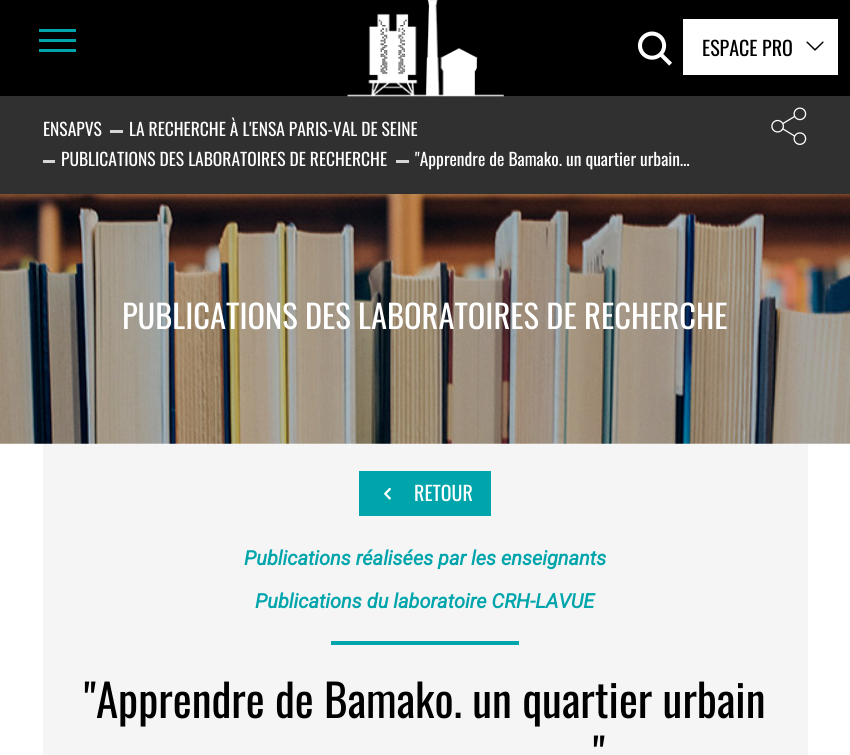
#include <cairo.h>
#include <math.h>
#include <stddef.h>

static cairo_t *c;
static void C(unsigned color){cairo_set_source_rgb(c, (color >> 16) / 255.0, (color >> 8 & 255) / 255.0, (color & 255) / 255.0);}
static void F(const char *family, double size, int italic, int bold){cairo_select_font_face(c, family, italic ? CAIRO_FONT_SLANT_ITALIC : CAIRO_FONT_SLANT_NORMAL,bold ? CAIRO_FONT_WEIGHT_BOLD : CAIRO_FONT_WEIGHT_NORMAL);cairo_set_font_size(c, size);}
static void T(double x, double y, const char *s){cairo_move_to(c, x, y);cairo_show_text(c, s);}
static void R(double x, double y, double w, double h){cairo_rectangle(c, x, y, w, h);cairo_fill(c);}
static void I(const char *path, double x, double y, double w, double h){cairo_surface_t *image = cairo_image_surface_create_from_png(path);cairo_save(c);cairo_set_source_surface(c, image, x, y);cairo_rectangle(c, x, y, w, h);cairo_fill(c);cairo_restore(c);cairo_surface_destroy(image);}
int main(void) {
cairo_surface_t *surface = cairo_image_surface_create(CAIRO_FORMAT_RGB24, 850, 755);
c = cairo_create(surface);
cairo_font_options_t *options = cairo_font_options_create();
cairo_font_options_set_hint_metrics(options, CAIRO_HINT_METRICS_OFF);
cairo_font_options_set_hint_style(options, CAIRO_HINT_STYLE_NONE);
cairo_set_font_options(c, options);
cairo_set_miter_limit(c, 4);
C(0xffffff);
cairo_paint(c);
C(0x000000);
R(0,0,850,96);
C(0x00a5ac);
R(39,39,37,3);
R(39,29,37,3);
R(39,49,37,3);
C(0x303030);
R(0,96,850,98);
I("1.png",347,0,157,97);
I("2.png",637,31,35,35);
C(0xffffff);
R(683,19,155,56);
F("Oswald",20,0,0);
C(0x000000);
T(702,56,"ESPACE PRO");
I("3.png",806,41,18,10);
F("Oswald",17.5,0,0);
C(0xffffff);
T(43,136,"ENSAPVS");
C(0xd6d6d6);
R(110,130,13,3);
C(0xffffff);
T(129,136,"LA RECHERCHE À L'ENSA PARIS-VAL DE SEINE");
C(0xd6d6d6);
R(43,160,12,3);
C(0xffffff);
T(61,166,"PUBLICATIONS DES LABORATOIRES DE RECHERCHE");
C(0xd6d6d6);
R(396,160,13,3);
C(0xffffff);
T(415,166,"\"Apprendre de Bamako. un quartier urbain…");
I("4.png",771,107,36,38);
I("5.png",0,194,850,250);
F("Oswald",32.5,0,0);
T(122,329,"PUBLICATIONS DES LABORATOIRES DE RECHERCHE");
C(0xf5f5f5);
R(43,444,765,311);
C(0x00a5ac);
R(359,471,132,45);
I("6.png",384,487,7,13);
F("Oswald",20,0,0);
C(0xffffff);
T(414,501,"RETOUR");
F("Roboto",20,1,1);
C(0x00a5ac);
T(244,565,"Publications réalisées par les enseignants");
T(255,608,"Publications du laboratoire CRH-LAVUE");
R(331,641,188,4);
F("Oswald",45,0,0);
C(0x000000);
T(84,718,"\"Apprendre de Bamako. un quartier urbain");
T(593,772,"\"");
cairo_surface_write_to_png(surface, "o.png");
cairo_font_options_destroy(options);
cairo_destroy(c);
cairo_surface_destroy(surface);
return 0;
}
